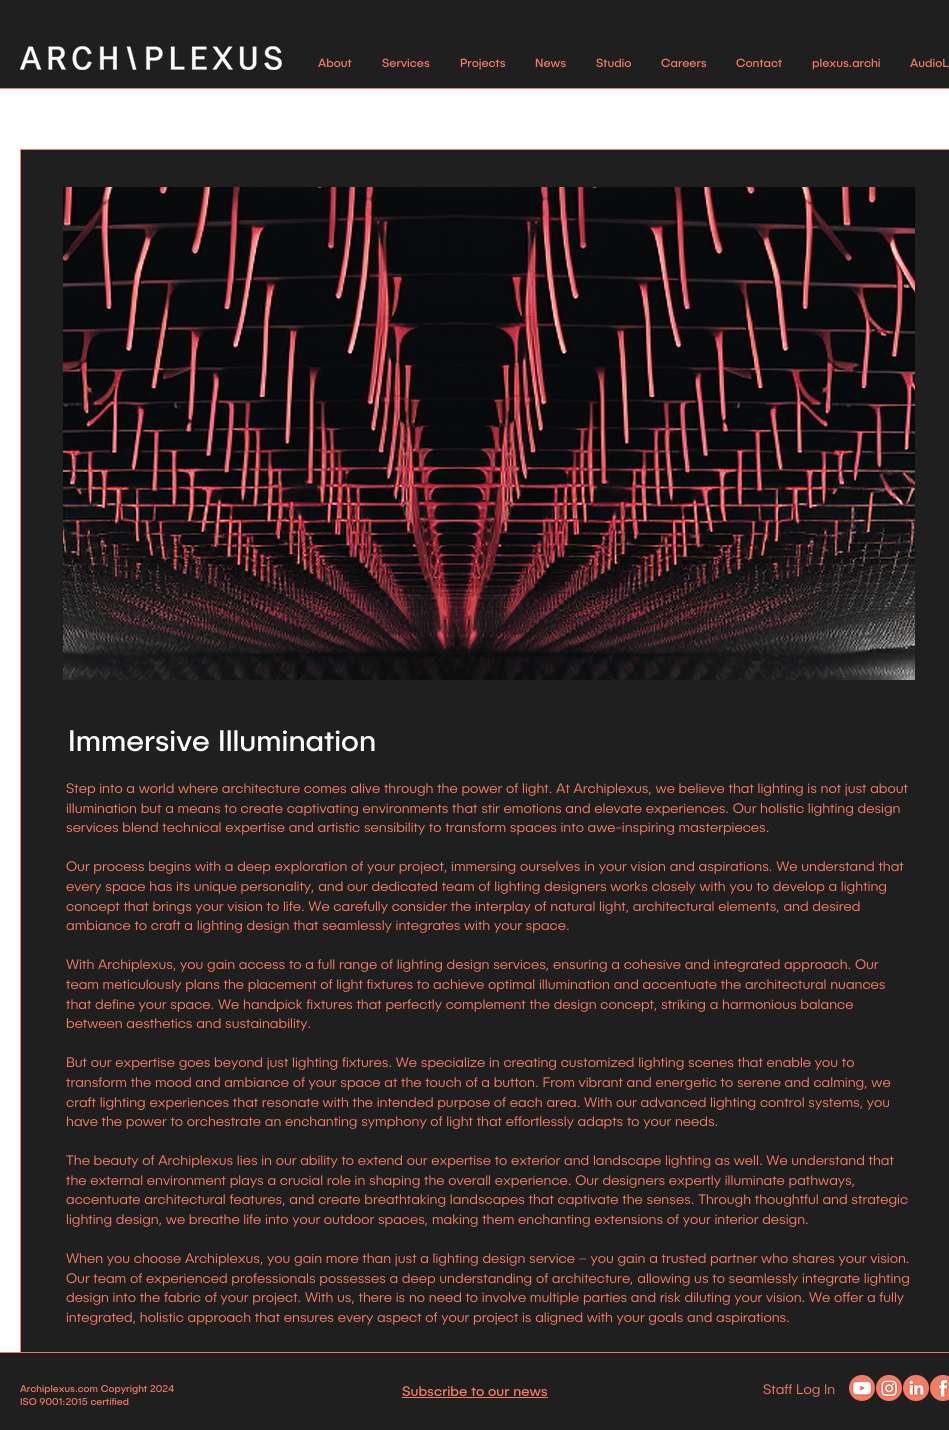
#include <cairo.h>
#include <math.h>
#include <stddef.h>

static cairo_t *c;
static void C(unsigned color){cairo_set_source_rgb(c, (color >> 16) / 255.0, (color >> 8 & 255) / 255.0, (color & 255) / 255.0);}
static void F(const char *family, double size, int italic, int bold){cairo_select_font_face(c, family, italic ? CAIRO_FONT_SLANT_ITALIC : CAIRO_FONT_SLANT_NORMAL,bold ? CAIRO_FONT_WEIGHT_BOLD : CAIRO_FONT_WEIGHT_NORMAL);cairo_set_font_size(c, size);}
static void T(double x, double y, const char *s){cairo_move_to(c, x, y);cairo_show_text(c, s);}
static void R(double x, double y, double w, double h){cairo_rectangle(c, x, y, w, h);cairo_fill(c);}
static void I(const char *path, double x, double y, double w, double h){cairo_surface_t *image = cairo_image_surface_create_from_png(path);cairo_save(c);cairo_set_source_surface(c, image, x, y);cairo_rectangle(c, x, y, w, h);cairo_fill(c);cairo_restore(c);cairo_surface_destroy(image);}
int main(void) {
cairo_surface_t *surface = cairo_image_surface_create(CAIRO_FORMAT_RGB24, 949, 1430);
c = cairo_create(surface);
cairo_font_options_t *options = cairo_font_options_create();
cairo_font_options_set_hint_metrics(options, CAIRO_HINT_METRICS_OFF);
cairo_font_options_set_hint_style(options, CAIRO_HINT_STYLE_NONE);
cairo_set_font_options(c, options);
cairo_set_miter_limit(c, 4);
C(0xffffff);
cairo_paint(c);
C(0x1f1f1f);
R(0,0,949,88);
C(0xf47c64);
R(0,88,949,1);
I("1.png",20,46,262,24);
F("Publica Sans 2",12,0,0);
T(318,67,"About");
T(382,67,"Services");
T(460,67,"Projects");
T(535,67,"News");
T(596,67,"Studio");
T(661,67,"Careers");
T(736,67,"Contact");
T(812,67,"plexus.archi");
T(910,67,"AudioL");
C(0x1f1f1f);
R(21,150,928,1202);
cairo_rectangle(c,20.5,149.5,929,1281);
C(0xf47c64);
cairo_set_line_width(c,1);
cairo_stroke(c);
I("2.png",63,187,852,493);
F("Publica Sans",30,0,0);
C(0xffffff);
T(68,751,"Immersive Illumination");
F("Publica Sans Light",14,0,0);
C(0xf47c64);
T(66,793,"Step into a world where architecture comes alive through the power of light. At Archiplexus, we believe that lighting is not just about");
T(66,813,"illumination but a means to create captivating environments that stir emotions and elevate experiences. Our holistic lighting design");
T(66,832,"services blend technical expertise and artistic sensibility to transform spaces into awe-inspiring masterpieces.");
T(66,871,"Our process begins with a deep exploration of your project, immersing ourselves in your vision and aspirations. We understand that");
T(66,891,"every space has its unique personality, and our dedicated team of lighting designers works closely with you to develop a lighting");
T(66,911,"concept that brings your vision to life. We carefully consider the interplay of natural light, architectural elements, and desired");
T(66,930,"ambiance to craft a lighting design that seamlessly integrates with your space.");
T(66,969,"With Archiplexus, you gain access to a full range of lighting design services, ensuring a cohesive and integrated approach. Our");
T(66,989,"team meticulously plans the placement of light fixtures to achieve optimal illumination and accentuate the architectural nuances");
T(66,1009,"that define your space. We handpick fixtures that perfectly complement the design concept, striking a harmonious balance");
T(66,1028,"between aesthetics and sustainability.");
T(66,1067,"But our expertise goes beyond just lighting fixtures. We specialize in creating customized lighting scenes that enable you to");
T(66,1087,"transform the mood and ambiance of your space at the touch of a button. From vibrant and energetic to serene and calming, we");
T(66,1107,"craft lighting experiences that resonate with the intended purpose of each area. With our advanced lighting control systems, you");
T(66,1126,"have the power to orchestrate an enchanting symphony of light that effortlessly adapts to your needs.");
T(66,1165,"The beauty of Archiplexus lies in our ability to extend our expertise to exterior and landscape lighting as well. We understand that");
T(66,1185,"the external environment plays a crucial role in shaping the overall experience. Our designers expertly illuminate pathways,");
T(66,1204,"accentuate architectural features, and create breathtaking landscapes that captivate the senses. Through thoughtful and strategic");
T(66,1224,"lighting design, we breathe life into your outdoor spaces, making them enchanting extensions of your interior design.");
T(66,1263,"When you choose Archiplexus, you gain more than just a lighting design service – you gain a trusted partner who shares your vision.");
T(66,1283,"Our team of experienced professionals possesses a deep understanding of architecture, allowing us to seamlessly integrate lighting");
T(66,1302,"design into the fabric of your project. With us, there is no need to involve multiple parties and risk diluting your vision. We offer a fully");
T(66,1322,"integrated, holistic approach that ensures every aspect of your project is aligned with your goals and aspirations.");
C(0x1f1f1f);
R(0,1353,949,77);
C(0xf47c64);
R(0,1352,949,1);
F("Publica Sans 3",10,0,0);
T(20,1392,"Archiplexus.com Copyright 2024");
T(20,1405,"ISO 9001:2015 certified");
F("Publica Sans 3",14,0,0);
T(402,1396,"Subscribe to our news");
R(402,1397,146,1);
F("Publica Sans Light",14,0,0);
T(763,1394,"Staff Log In");
I("3.png",849,1375,26,26);
I("4.png",876,1375,26,26);
I("5.png",903,1375,26,26);
I("6.png",930,1375,19,26);
cairo_surface_write_to_png(surface, "o.png");
cairo_font_options_destroy(options);
cairo_destroy(c);
cairo_surface_destroy(surface);
return 0;
}
